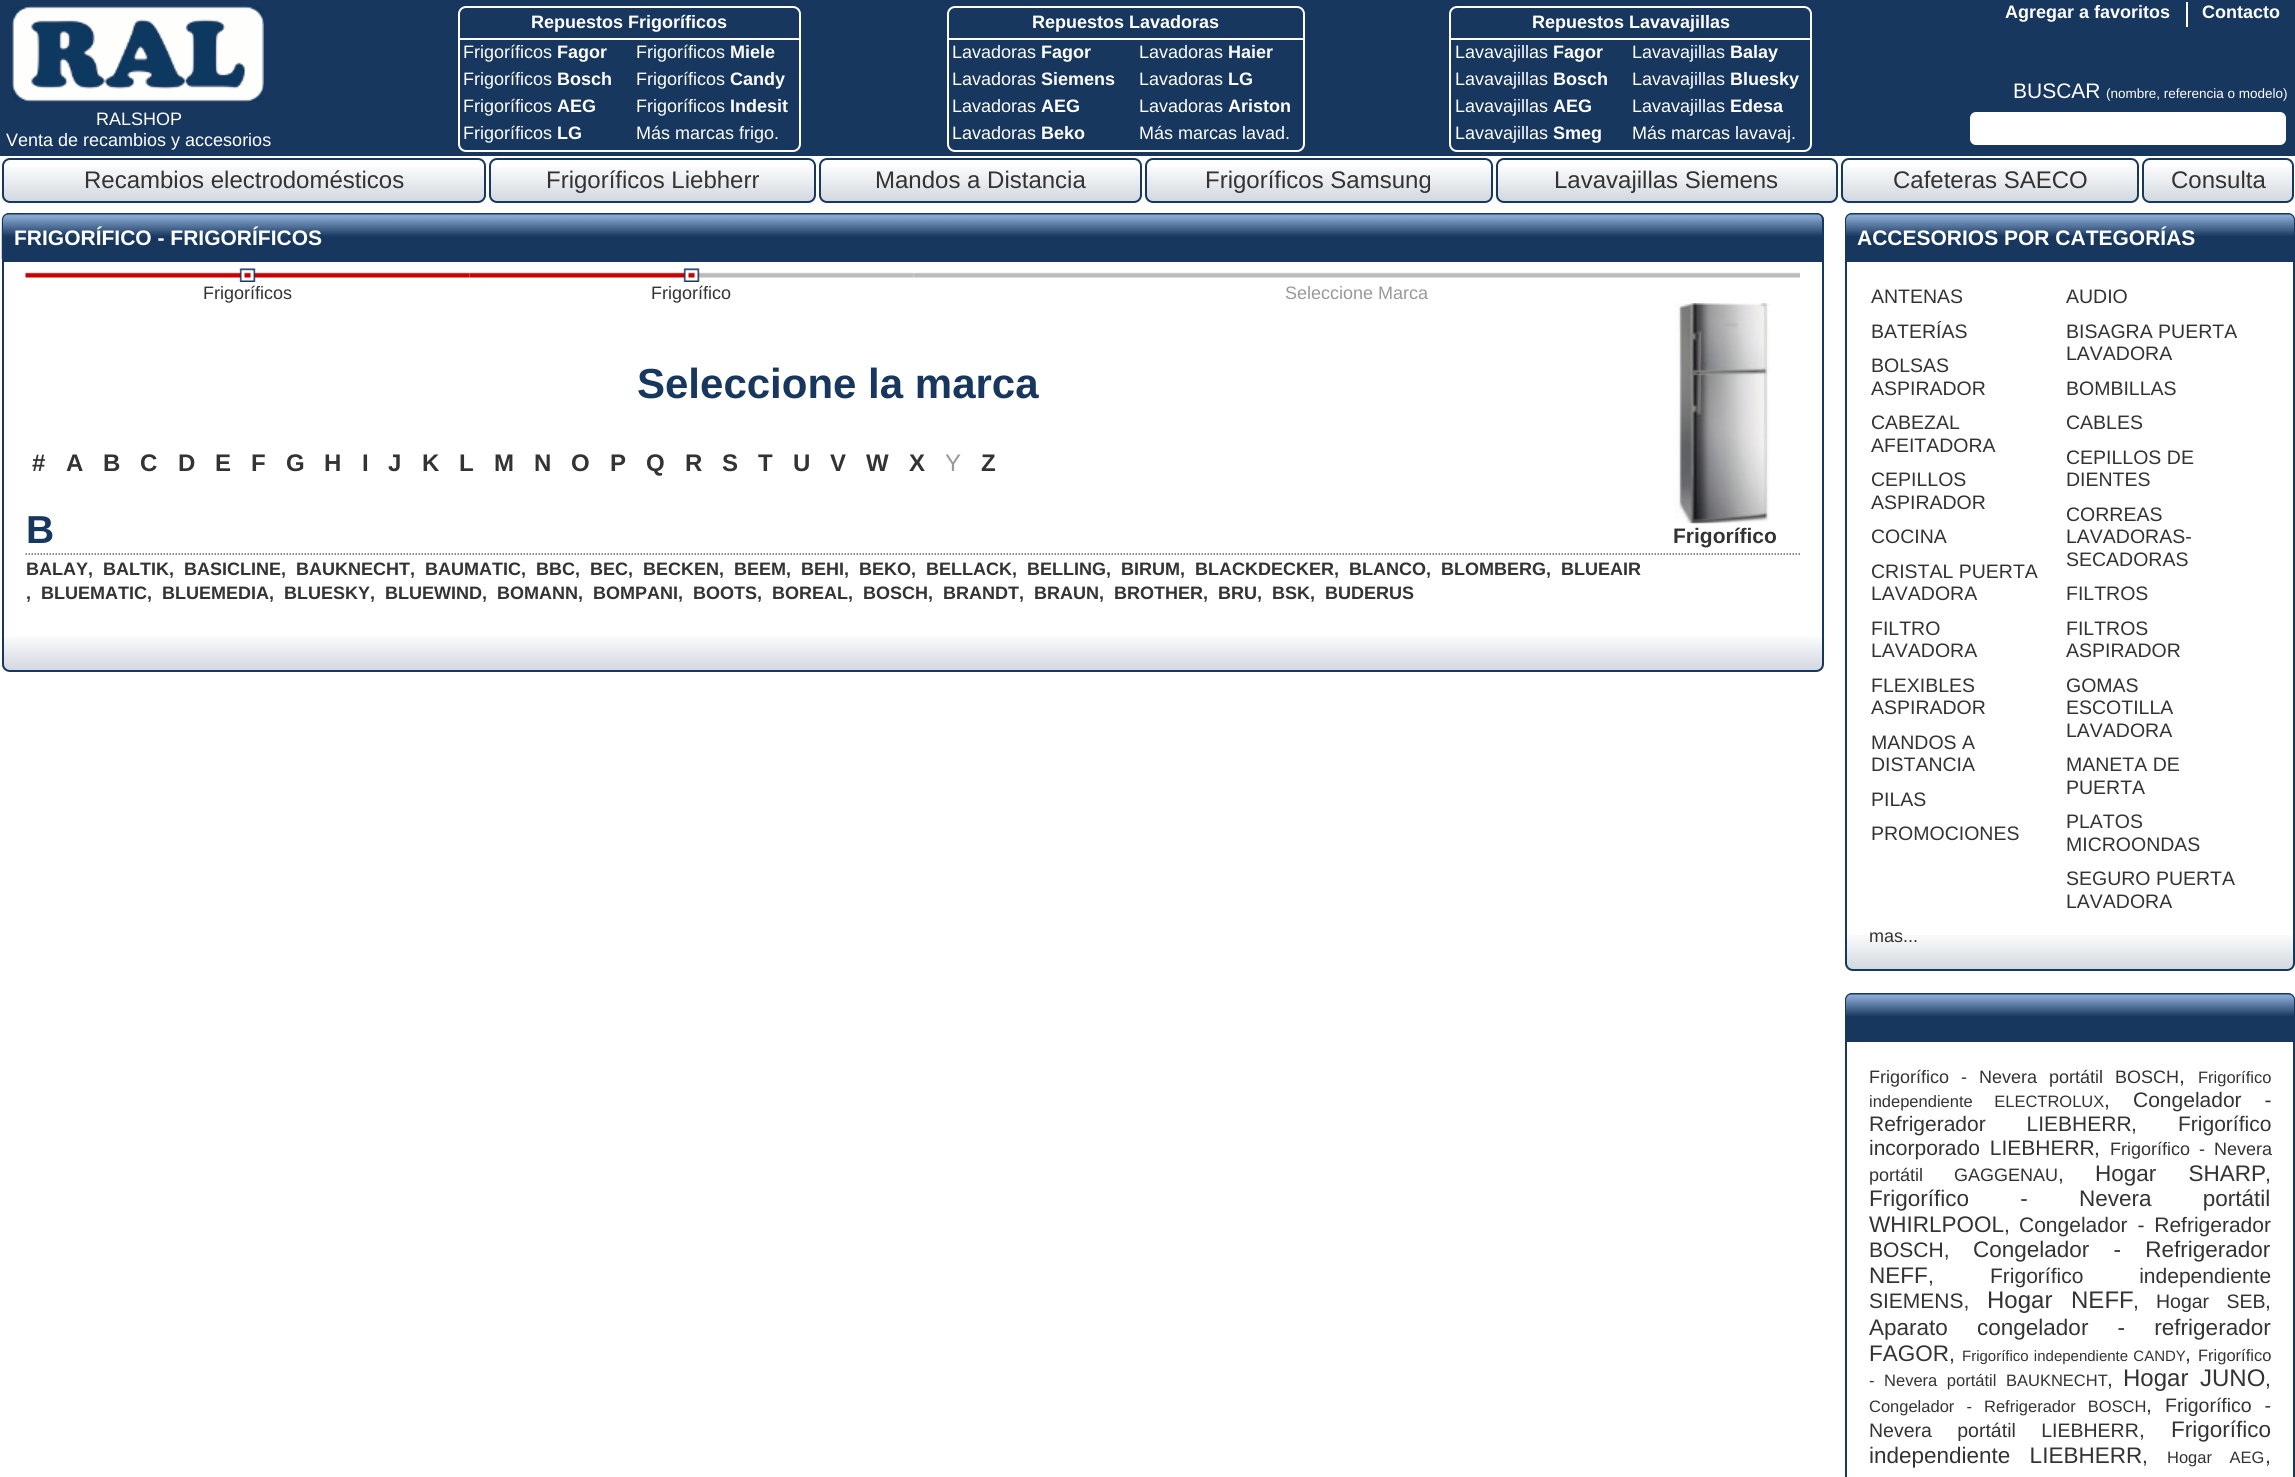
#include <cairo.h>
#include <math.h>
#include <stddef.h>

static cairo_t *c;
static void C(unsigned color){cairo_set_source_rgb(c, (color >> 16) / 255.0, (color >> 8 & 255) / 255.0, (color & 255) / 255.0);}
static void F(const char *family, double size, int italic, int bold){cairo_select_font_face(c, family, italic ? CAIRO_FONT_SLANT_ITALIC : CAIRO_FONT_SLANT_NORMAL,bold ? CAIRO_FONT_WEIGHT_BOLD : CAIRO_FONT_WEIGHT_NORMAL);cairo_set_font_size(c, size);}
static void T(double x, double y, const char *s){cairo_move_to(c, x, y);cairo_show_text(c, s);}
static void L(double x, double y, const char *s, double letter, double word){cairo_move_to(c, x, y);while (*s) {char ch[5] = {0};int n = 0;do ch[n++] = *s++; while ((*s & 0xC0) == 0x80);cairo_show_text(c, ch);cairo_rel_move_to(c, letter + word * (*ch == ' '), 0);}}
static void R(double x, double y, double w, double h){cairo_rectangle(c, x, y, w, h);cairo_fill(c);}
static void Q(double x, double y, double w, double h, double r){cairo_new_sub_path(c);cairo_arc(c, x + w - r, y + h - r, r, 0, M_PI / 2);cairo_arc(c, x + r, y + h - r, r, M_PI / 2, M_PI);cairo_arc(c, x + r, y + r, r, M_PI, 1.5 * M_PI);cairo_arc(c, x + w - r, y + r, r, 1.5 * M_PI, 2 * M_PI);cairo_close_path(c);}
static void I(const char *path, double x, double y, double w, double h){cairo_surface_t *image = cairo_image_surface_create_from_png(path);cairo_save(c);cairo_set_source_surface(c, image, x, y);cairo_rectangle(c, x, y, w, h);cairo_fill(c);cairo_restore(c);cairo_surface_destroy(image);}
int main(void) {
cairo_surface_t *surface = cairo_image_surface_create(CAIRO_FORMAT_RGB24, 2295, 1477);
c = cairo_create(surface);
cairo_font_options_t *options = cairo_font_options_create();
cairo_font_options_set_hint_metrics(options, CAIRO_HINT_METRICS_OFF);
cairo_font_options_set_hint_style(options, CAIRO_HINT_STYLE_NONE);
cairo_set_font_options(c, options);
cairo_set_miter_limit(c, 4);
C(0xffffff);
cairo_paint(c);
C(0x17375e);
R(0,0,2295,156);
I("1.png",12,6,252,96);
F("Liberation Sans",18,0,0);
C(0xffffff);
T(96,125,"RALSHOP");
T(6,146,"Venta de recambios y accesorios");
Q(459,7,341,144,7);
cairo_stroke(c);
R(459,38,341,2);
F("Liberation Sans",18,0,1);
T(531,28,"Repuestos Frigoríficos");
F("Liberation Sans",18,0,0);
T(463,58,"Frigoríficos");
F("Liberation Sans",18,0,1);
T(557,58,"Fagor");
F("Liberation Sans",18,0,0);
T(463,85,"Frigoríficos");
F("Liberation Sans",18,0,1);
T(557,85,"Bosch");
F("Liberation Sans",18,0,0);
T(463,112,"Frigoríficos");
F("Liberation Sans",18,0,1);
T(557,112,"AEG");
F("Liberation Sans",18,0,0);
T(463,139,"Frigoríficos");
F("Liberation Sans",18,0,1);
T(557,139,"LG");
F("Liberation Sans",18,0,0);
T(636,58,"Frigoríficos");
F("Liberation Sans",18,0,1);
T(730,58,"Miele");
F("Liberation Sans",18,0,0);
T(636,85,"Frigoríficos");
F("Liberation Sans",18,0,1);
T(730,85,"Candy");
F("Liberation Sans",18,0,0);
T(636,112,"Frigoríficos");
F("Liberation Sans",18,0,1);
T(730,112,"Indesit");
F("Liberation Sans",18,0,0);
T(636,139,"Más marcas frigo.");
Q(948,7,356,144,7);
cairo_stroke(c);
R(948,38,356,2);
F("Liberation Sans",18,0,1);
T(1032,28,"Repuestos Lavadoras");
F("Liberation Sans",18,0,0);
T(952,58,"Lavadoras");
F("Liberation Sans",18,0,1);
T(1041,58,"Fagor");
F("Liberation Sans",18,0,0);
T(952,85,"Lavadoras");
F("Liberation Sans",18,0,1);
T(1041,85,"Siemens");
F("Liberation Sans",18,0,0);
T(952,112,"Lavadoras");
F("Liberation Sans",18,0,1);
T(1041,112,"AEG");
F("Liberation Sans",18,0,0);
T(952,139,"Lavadoras");
F("Liberation Sans",18,0,1);
T(1041,139,"Beko");
F("Liberation Sans",18,0,0);
T(1139,58,"Lavadoras");
F("Liberation Sans",18,0,1);
T(1228,58,"Haier");
F("Liberation Sans",18,0,0);
T(1139,85,"Lavadoras");
F("Liberation Sans",18,0,1);
T(1228,85,"LG");
F("Liberation Sans",18,0,0);
T(1139,112,"Lavadoras");
F("Liberation Sans",18,0,1);
T(1228,112,"Ariston");
F("Liberation Sans",18,0,0);
T(1139,139,"Más marcas lavad.");
Q(1450,7,361,144,7);
cairo_stroke(c);
R(1451,38,360,2);
F("Liberation Sans",18,0,1);
T(1532,28,"Repuestos Lavavajillas");
F("Liberation Sans",18,0,0);
T(1455,58,"Lavavajillas");
F("Liberation Sans",18,0,1);
T(1553,58,"Fagor");
F("Liberation Sans",18,0,0);
T(1455,85,"Lavavajillas");
F("Liberation Sans",18,0,1);
T(1553,85,"Bosch");
F("Liberation Sans",18,0,0);
T(1455,112,"Lavavajillas");
F("Liberation Sans",18,0,1);
T(1553,112,"AEG");
F("Liberation Sans",18,0,0);
T(1455,139,"Lavavajillas");
F("Liberation Sans",18,0,1);
T(1553,139,"Smeg");
F("Liberation Sans",18,0,0);
T(1632,58,"Lavavajillas");
F("Liberation Sans",18,0,1);
T(1730,58,"Balay");
F("Liberation Sans",18,0,0);
T(1632,85,"Lavavajillas");
F("Liberation Sans",18,0,1);
T(1730,85,"Bluesky");
F("Liberation Sans",18,0,0);
T(1632,112,"Lavavajillas");
F("Liberation Sans",18,0,1);
T(1730,112,"Edesa");
F("Liberation Sans",18,0,0);
T(1632,139,"Más marcas lavavaj.");
R(2186,2,2,25);
F("Liberation Sans",18,0,1);
T(2005,18,"Agregar a favoritos");
T(2202,18,"Contacto");
F("Liberation Sans",21,0,0);
T(2013,98,"BUSCAR");
F("Liberation Sans",13.5,0,0);
T(2106,98,"(nombre, referencia o modelo)");
Q(1969,111,318,35,7);
cairo_fill_preserve(c);
C(0x17375e);
cairo_stroke(c);
I("2.png",1,167,485,34);
Q(3,159,482,43,7);
cairo_stroke(c);
F("Liberation Sans",24,0,0);
C(0x333333);
T(84,188,"Recambios electrodomésticos");
I("3.png",489,167,327,34);
Q(490,159,325,43,7);
C(0x17375e);
cairo_stroke(c);
C(0x333333);
T(546,188,"Frigoríficos Liebherr");
I("4.png",819,167,323,34);
Q(820,159,321,43,7);
C(0x17375e);
cairo_stroke(c);
C(0x333333);
T(875,188,"Mandos a Distancia");
I("5.png",1144,167,349,34);
Q(1146,159,346,43,7);
C(0x17375e);
cairo_stroke(c);
C(0x333333);
T(1205,188,"Frigoríficos Samsung");
I("6.png",1495,167,343,34);
Q(1497,159,340,43,7);
C(0x17375e);
cairo_stroke(c);
C(0x333333);
T(1554,188,"Lavavajillas Siemens");
I("7.png",1840,167,299,34);
Q(1842,159,296,43,7);
C(0x17375e);
cairo_stroke(c);
C(0x333333);
T(1893,188,"Cafeteras SAECO");
I("8.png",2142,167,152,34);
Q(2143,159,150,43,7);
C(0x17375e);
cairo_stroke(c);
C(0x333333);
T(2171,188,"Consulta");
C(0x17375e);
cairo_new_path(c);
cairo_move_to(c,10,213);
cairo_line_to(c,1816,213);
cairo_curve_to(c,1820.5,213,1824,216.5,1824,221);
cairo_line_to(c,1824,260);
cairo_line_to(c,2,260);
cairo_line_to(c,2,221);
cairo_curve_to(c,2,216.5,5.5,213,10,213);
cairo_close_path(c);
cairo_fill(c);
I("9.png",1,214,1823,46);
cairo_set_fill_rule(c,CAIRO_FILL_RULE_EVEN_ODD);
cairo_new_path(c);
cairo_move_to(c,9,213);
cairo_line_to(c,1816,213);
cairo_curve_to(c,1821,213,1824,216,1824,220);
cairo_line_to(c,1824,260);
cairo_line_to(c,2,260);
cairo_line_to(c,2,220);
cairo_curve_to(c,2,216,5,213,9,213);
cairo_close_path(c);
cairo_move_to(c,9,214);
cairo_line_to(c,1816,214);
cairo_curve_to(c,1820,214,1822,217,1822,220);
cairo_line_to(c,1822,260);
cairo_line_to(c,3,260);
cairo_line_to(c,3,220);
cairo_curve_to(c,3,217,6,214,9,214);
cairo_close_path(c);
cairo_fill(c);
F("Liberation Sans",21,0,1);
C(0xffffff);
T(14,245,"FRIGORÍFICO - FRIGORÍFICOS");
I("10.png",1,636,1823,35);
cairo_new_path(c);
cairo_move_to(c,3,261);
cairo_line_to(c,1823,261);
cairo_line_to(c,1823,664);
cairo_curve_to(c,1823,668,1820,671,1816,671);
cairo_line_to(c,10,671);
cairo_curve_to(c,6,671,3,668,3,664);
cairo_close_path(c);
C(0x17375e);
cairo_stroke(c);
I("11.png",25,268,445,14);
F("Liberation Sans",18,0,0);
C(0x333333);
T(203,299,"Frigoríficos");
I("12.png",469,268,445,14);
T(651,299,"Frigorífico");
I("13.png",913,272,887,6);
C(0x999999);
T(1285,299,"Seleccione Marca");
F("Liberation Sans",42,0,1);
C(0x17375e);
T(637,398,"Seleccione la marca");
F("Liberation Sans",24,0,1);
C(0x333333);
T(32,471,"#");
T(66,471,"A");
T(103,471,"B");
T(140,471,"C");
T(178,471,"D");
T(215,471,"E");
T(251,471,"F");
T(286,471,"G");
T(324,471,"H");
T(362,471,"I");
T(388,471,"J");
T(422,471,"K");
T(459,471,"L");
T(494,471,"M");
T(534,471,"N");
T(571,471,"O");
T(610,471,"P");
T(646,471,"Q");
T(685,471,"R");
T(722,471,"S");
T(758,471,"T");
T(793,471,"U");
T(830,471,"V");
T(866,471,"W");
T(909,471,"X");
F("Liberation Sans",24,0,0);
C(0x999999);
T(945,471,"Y");
F("Liberation Sans",24,0,1);
C(0x333333);
T(981,471,"Z");
cairo_new_path(c);
cairo_move_to(c,25.5,554);
cairo_line_to(c,1800,554);
C(0x666666);
cairo_set_line_width(c,1.5);
cairo_set_dash(c,(double[]){1.5,1.5},2,0);
cairo_stroke(c);
F("Liberation Sans",39,0,1);
C(0x17375e);
T(26,543,"B");
F("Liberation Sans",18,0,1);
C(0x333333);
T(26,575,"BALAY,");
T(103,575,"BALTIK,");
T(184,575,"BASICLINE,");
T(296,575,"BAUKNECHT,");
T(425,575,"BAUMATIC,");
T(536,575,"BBC,");
T(590,575,"BEC,");
T(643,575,"BECKEN,");
T(734,575,"BEEM,");
T(801,575,"BEHI,");
T(859,575,"BEKO,");
T(926,575,"BELLACK,");
T(1027,575,"BELLING,");
T(1121,575,"BIRUM,");
T(1195,575,"BLACKDECKER,");
T(1349,575,"BLANCO,");
T(1441,575,"BLOMBERG,");
T(1561,575,"BLUEAIR");
T(26,599,",");
T(41,599,"BLUEMATIC,");
T(162,599,"BLUEMEDIA,");
T(284,599,"BLUESKY,");
T(385,599,"BLUEWIND,");
T(497,599,"BOMANN,");
T(593,599,"BOMPANI,");
T(693,599,"BOOTS,");
T(772,599,"BOREAL,");
T(863,599,"BOSCH,");
T(943,599,"BRANDT,");
T(1034,599,"BRAUN,");
T(1114,599,"BROTHER,");
T(1218,599,"BRU,");
T(1272,599,"BSK,");
T(1325,599,"BUDERUS");
I("14.png",1674,303,96,221);
F("Liberation Sans",21,0,1);
T(1673,543,"Frigorífico");
C(0x17375e);
cairo_new_path(c);
cairo_move_to(c,1853,213);
cairo_line_to(c,2287,213);
cairo_curve_to(c,2291.5,213,2295,216.5,2295,221);
cairo_line_to(c,2295,260);
cairo_line_to(c,1845,260);
cairo_line_to(c,1845,221);
cairo_curve_to(c,1845,216.5,1848.5,213,1853,213);
cairo_close_path(c);
cairo_fill(c);
I("15.png",1845,214,450,22);
cairo_new_path(c);
cairo_move_to(c,1852,213);
cairo_line_to(c,2288,213);
cairo_curve_to(c,2292,213,2295,216,2295,220);
cairo_line_to(c,2295,260);
cairo_line_to(c,1845,260);
cairo_line_to(c,1845,220);
cairo_curve_to(c,1845,216,1848,213,1852,213);
cairo_close_path(c);
cairo_move_to(c,1852,214);
cairo_line_to(c,2288,214);
cairo_curve_to(c,2291,214,2294,217,2294,220);
cairo_line_to(c,2294,260);
cairo_line_to(c,1846,260);
cairo_line_to(c,1846,220);
cairo_curve_to(c,1846,217,1849,214,1852,214);
cairo_close_path(c);
cairo_fill(c);
C(0xffffff);
T(1857,245,"ACCESORIOS POR CATEGORÍAS");
I("16.png",1845,935,450,34);
cairo_new_path(c);
cairo_move_to(c,1846,261);
cairo_line_to(c,2294,261);
cairo_line_to(c,2294,963);
cairo_curve_to(c,2294,967,2291,970,2287,970);
cairo_line_to(c,1853,970);
cairo_curve_to(c,1849,970,1846,967,1846,963);
cairo_close_path(c);
C(0x17375e);
cairo_set_line_width(c,2);
cairo_set_dash(c,NULL,0,0);
cairo_stroke(c);
F("Liberation Sans",19.5,0,0);
C(0x333333);
T(1871,303,"ANTENAS");
T(1871,338,"BATERÍAS");
T(1871,372,"BOLSAS");
T(1871,395,"ASPIRADOR");
T(1871,429,"CABEZAL");
T(1871,452,"AFEITADORA");
T(1871,486,"CEPILLOS");
T(1871,509,"ASPIRADOR");
T(1871,543,"COCINA");
T(1871,578,"CRISTAL PUERTA");
T(1871,600,"LAVADORA");
T(1871,635,"FILTRO");
T(1871,657,"LAVADORA");
T(1871,692,"FLEXIBLES");
T(1871,714,"ASPIRADOR");
T(1871,749,"MANDOS A");
T(1871,771,"DISTANCIA");
T(1871,806,"PILAS");
T(1871,840,"PROMOCIONES");
T(2066,303,"AUDIO");
T(2066,338,"BISAGRA PUERTA");
T(2066,360,"LAVADORA");
T(2066,395,"BOMBILLAS");
T(2066,429,"CABLES");
T(2066,464,"CEPILLOS DE");
T(2066,486,"DIENTES");
T(2066,521,"CORREAS");
T(2066,543,"LAVADORAS-");
T(2066,566,"SECADORAS");
T(2066,600,"FILTROS");
T(2066,635,"FILTROS");
T(2066,657,"ASPIRADOR");
T(2066,692,"GOMAS");
T(2066,714,"ESCOTILLA");
T(2066,737,"LAVADORA");
T(2066,771,"MANETA DE");
T(2066,794,"PUERTA");
T(2066,828,"PLATOS");
T(2066,851,"MICROONDAS");
T(2066,885,"SEGURO PUERTA");
T(2066,908,"LAVADORA");
F("Liberation Sans",18,0,0);
T(1869,942,"mas...");
C(0x17375e);
cairo_new_path(c);
cairo_move_to(c,1853,993);
cairo_line_to(c,2287,993);
cairo_curve_to(c,2291.5,993,2295,996.5,2295,1001);
cairo_line_to(c,2295,1040);
cairo_line_to(c,1845,1040);
cairo_line_to(c,1845,1001);
cairo_curve_to(c,1845,996.5,1848.5,993,1853,993);
cairo_close_path(c);
cairo_fill(c);
I("17.png",1845,994,450,22);
cairo_new_path(c);
cairo_move_to(c,1852,993);
cairo_line_to(c,2288,993);
cairo_curve_to(c,2292,993,2295,996,2295,1000);
cairo_line_to(c,2295,1040);
cairo_line_to(c,1845,1040);
cairo_line_to(c,1845,1000);
cairo_curve_to(c,1845,996,1848,993,1852,993);
cairo_close_path(c);
cairo_move_to(c,1852,994);
cairo_line_to(c,2288,994);
cairo_curve_to(c,2291,994,2294,997,2294,1000);
cairo_line_to(c,2294,1040);
cairo_line_to(c,1846,1040);
cairo_line_to(c,1846,1000);
cairo_curve_to(c,1846,997,1849,994,1852,994);
cairo_close_path(c);
cairo_fill(c);
cairo_rectangle(c,1846,1041,448,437);
cairo_stroke(c);
C(0x333333);
L(1869,1083,"Frigorífico - Nevera portátil BOSCH",0,7);
F("Liberation Sans",21,0,0);
T(2179,1083,",");
F("Liberation Sans",16.5,0,0);
T(2198,1083,"Frigorífico");
L(1869,1107,"independiente ELECTROLUX",0,17);
F("Liberation Sans",21,0,0);
T(2104,1107,",");
L(2133,1107,"Congelador -",0,17);
L(1869,1131,"Refrigerador LIEBHERR",0,35);
T(2131,1131,",");
T(2178,1131,"Frigorífico");
L(1869,1155,"incorporado LIEBHERR",0,4);
T(2094,1155,",");
F("Liberation Sans",18,0,0);
L(2110,1155,"Frigorífico - Nevera",0,4);
L(1869,1181,"portátil GAGGENAU",0,26);
F("Liberation Sans",21,0,0);
T(2058,1181,",");
F("Liberation Sans",22.5,0,0);
L(2095,1181,"Hogar SHARP",0,26);
F("Liberation Sans",21,0,0);
T(2265,1181,",");
F("Liberation Sans",22.5,0,0);
L(1869,1206,"Frigorífico - Nevera portátil",0,45);
T(1869,1232,"WHIRLPOOL");
F("Liberation Sans",21,0,0);
T(2004,1232,",");
L(2019,1232,"Congelador - Refrigerador",0,4);
T(1869,1257,"BOSCH,");
F("Liberation Sans",22.5,0,0);
L(1973,1257,"Congelador - Refrigerador",0,18);
T(1869,1283,"NEFF");
F("Liberation Sans",21,0,0);
T(1928,1283,",");
L(1990,1283,"Frigorífico independiente",0,50);
T(1869,1308,"SIEMENS,");
F("Liberation Sans",24,0,0);
L(1987,1308,"Hogar NEFF",0,12);
F("Liberation Sans",21,0,0);
T(2133,1308,",");
F("Liberation Sans",19.5,0,0);
L(2156,1308,"Hogar SEB",0,12);
F("Liberation Sans",21,0,0);
T(2265,1308,",");
F("Liberation Sans",22.5,0,0);
L(1869,1335,"Aparato congelador - refrigerador",0,23);
T(1869,1361,"FAGOR");
F("Liberation Sans",21,0,0);
T(1949,1361,",");
F("Liberation Sans",15,0,0);
L(1962,1361,"Frigorífico independiente CANDY",0,1);
F("Liberation Sans",21,0,0);
T(2185,1361,",");
F("Liberation Sans",16.5,0,0);
T(2198,1361,"Frigorífico");
L(1869,1386,"- Nevera portátil BAUKNECHT",0,5);
F("Liberation Sans",21,0,0);
T(2107,1386,",");
F("Liberation Sans",24,0,0);
L(2123,1386,"Hogar JUNO",0,5);
F("Liberation Sans",21,0,0);
T(2265,1386,",");
F("Liberation Sans",16.5,0,0);
L(1869,1412,"Congelador - Refrigerador BOSCH",0,7.5);
F("Liberation Sans",21,0,0);
T(2146,1412,",");
F("Liberation Sans",19.5,0,0);
L(2165,1412,"Frigorífico -",0,7.5);
L(1869,1437,"Nevera portátil LIEBHERR",0,20);
F("Liberation Sans",21,0,0);
T(2139,1437,",");
F("Liberation Sans",22.5,0,0);
T(2171,1437,"Frigorífico");
L(1869,1463,"independiente LIEBHERR",0,13);
F("Liberation Sans",21,0,0);
T(2142,1463,",");
F("Liberation Sans",16.5,0,0);
L(2167,1463,"Hogar AEG",0,13);
F("Liberation Sans",21,0,0);
T(2265,1463,",");
cairo_surface_write_to_png(surface, "o.png");
cairo_font_options_destroy(options);
cairo_destroy(c);
cairo_surface_destroy(surface);
return 0;
}
